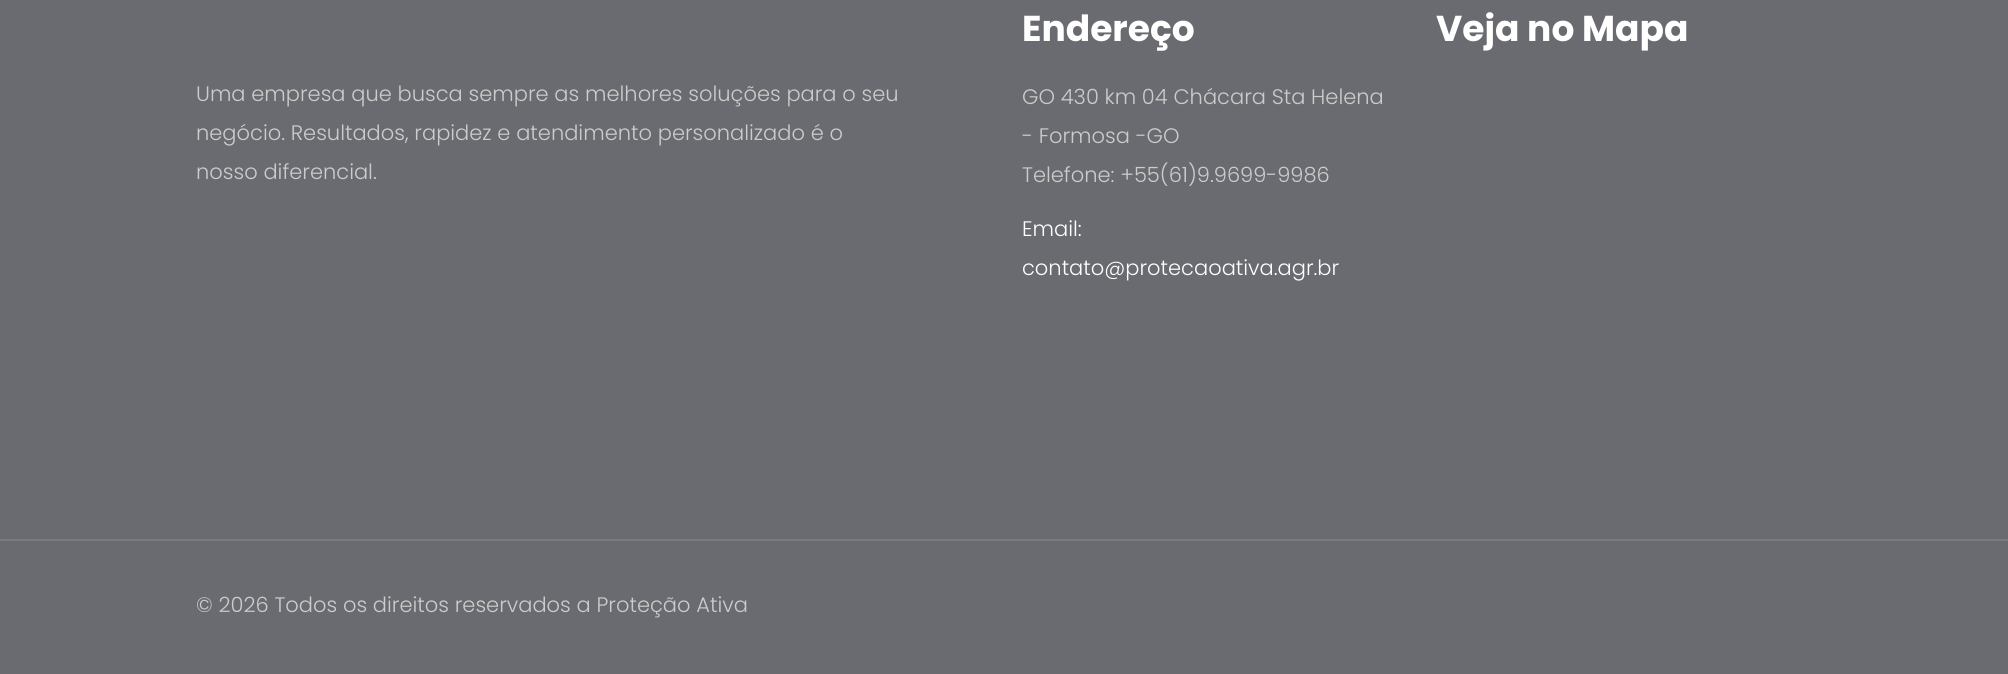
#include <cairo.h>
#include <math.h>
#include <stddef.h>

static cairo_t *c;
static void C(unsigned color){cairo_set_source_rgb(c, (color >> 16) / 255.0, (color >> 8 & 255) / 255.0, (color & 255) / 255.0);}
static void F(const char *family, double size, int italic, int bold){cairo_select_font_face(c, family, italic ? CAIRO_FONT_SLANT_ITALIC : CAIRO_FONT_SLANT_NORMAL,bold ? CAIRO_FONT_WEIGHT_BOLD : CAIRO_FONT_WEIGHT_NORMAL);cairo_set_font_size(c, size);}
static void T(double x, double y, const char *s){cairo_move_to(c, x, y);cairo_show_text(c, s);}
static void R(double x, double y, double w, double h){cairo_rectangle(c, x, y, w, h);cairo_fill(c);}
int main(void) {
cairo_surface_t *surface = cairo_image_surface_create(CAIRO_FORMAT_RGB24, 2008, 674);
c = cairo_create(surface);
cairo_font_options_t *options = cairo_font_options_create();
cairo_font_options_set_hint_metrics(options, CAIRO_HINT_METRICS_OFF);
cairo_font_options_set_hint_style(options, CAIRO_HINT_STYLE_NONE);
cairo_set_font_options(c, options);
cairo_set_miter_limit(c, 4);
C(0x6a6b70);
cairo_paint(c);
F("Poppins Light",21,0,0);
C(0xcccccc);
T(196,101,"Uma empresa que busca sempre as melhores soluções para o seu");
T(196,140,"negócio. Resultados, rapidez e atendimento personalizado é o");
T(196,179,"nosso diferencial.");
F("Poppins",36,0,1);
C(0xffffff);
T(1022,41,"Endereço");
F("Poppins Light",21,0,0);
C(0xcccccc);
T(1022,104,"GO 430 km 04 Chácara Sta Helena");
T(1022,143,"- Formosa -GO");
T(1022,182,"Telefone: +55(61)9.9699-9986");
C(0xffffff);
T(1022,236,"Email:");
T(1022,275,"contato@protecaoativa.agr.br");
F("Poppins",36,0,1);
T(1436,41,"Veja no Mapa");
C(0x797a7e);
R(0,539,2008,2);
F("Poppins Light",21,0,0);
C(0xcccccc);
T(196,612,"© 2026 Todos os direitos reservados a Proteção Ativa");
cairo_surface_write_to_png(surface, "o.png");
cairo_font_options_destroy(options);
cairo_destroy(c);
cairo_surface_destroy(surface);
return 0;
}
